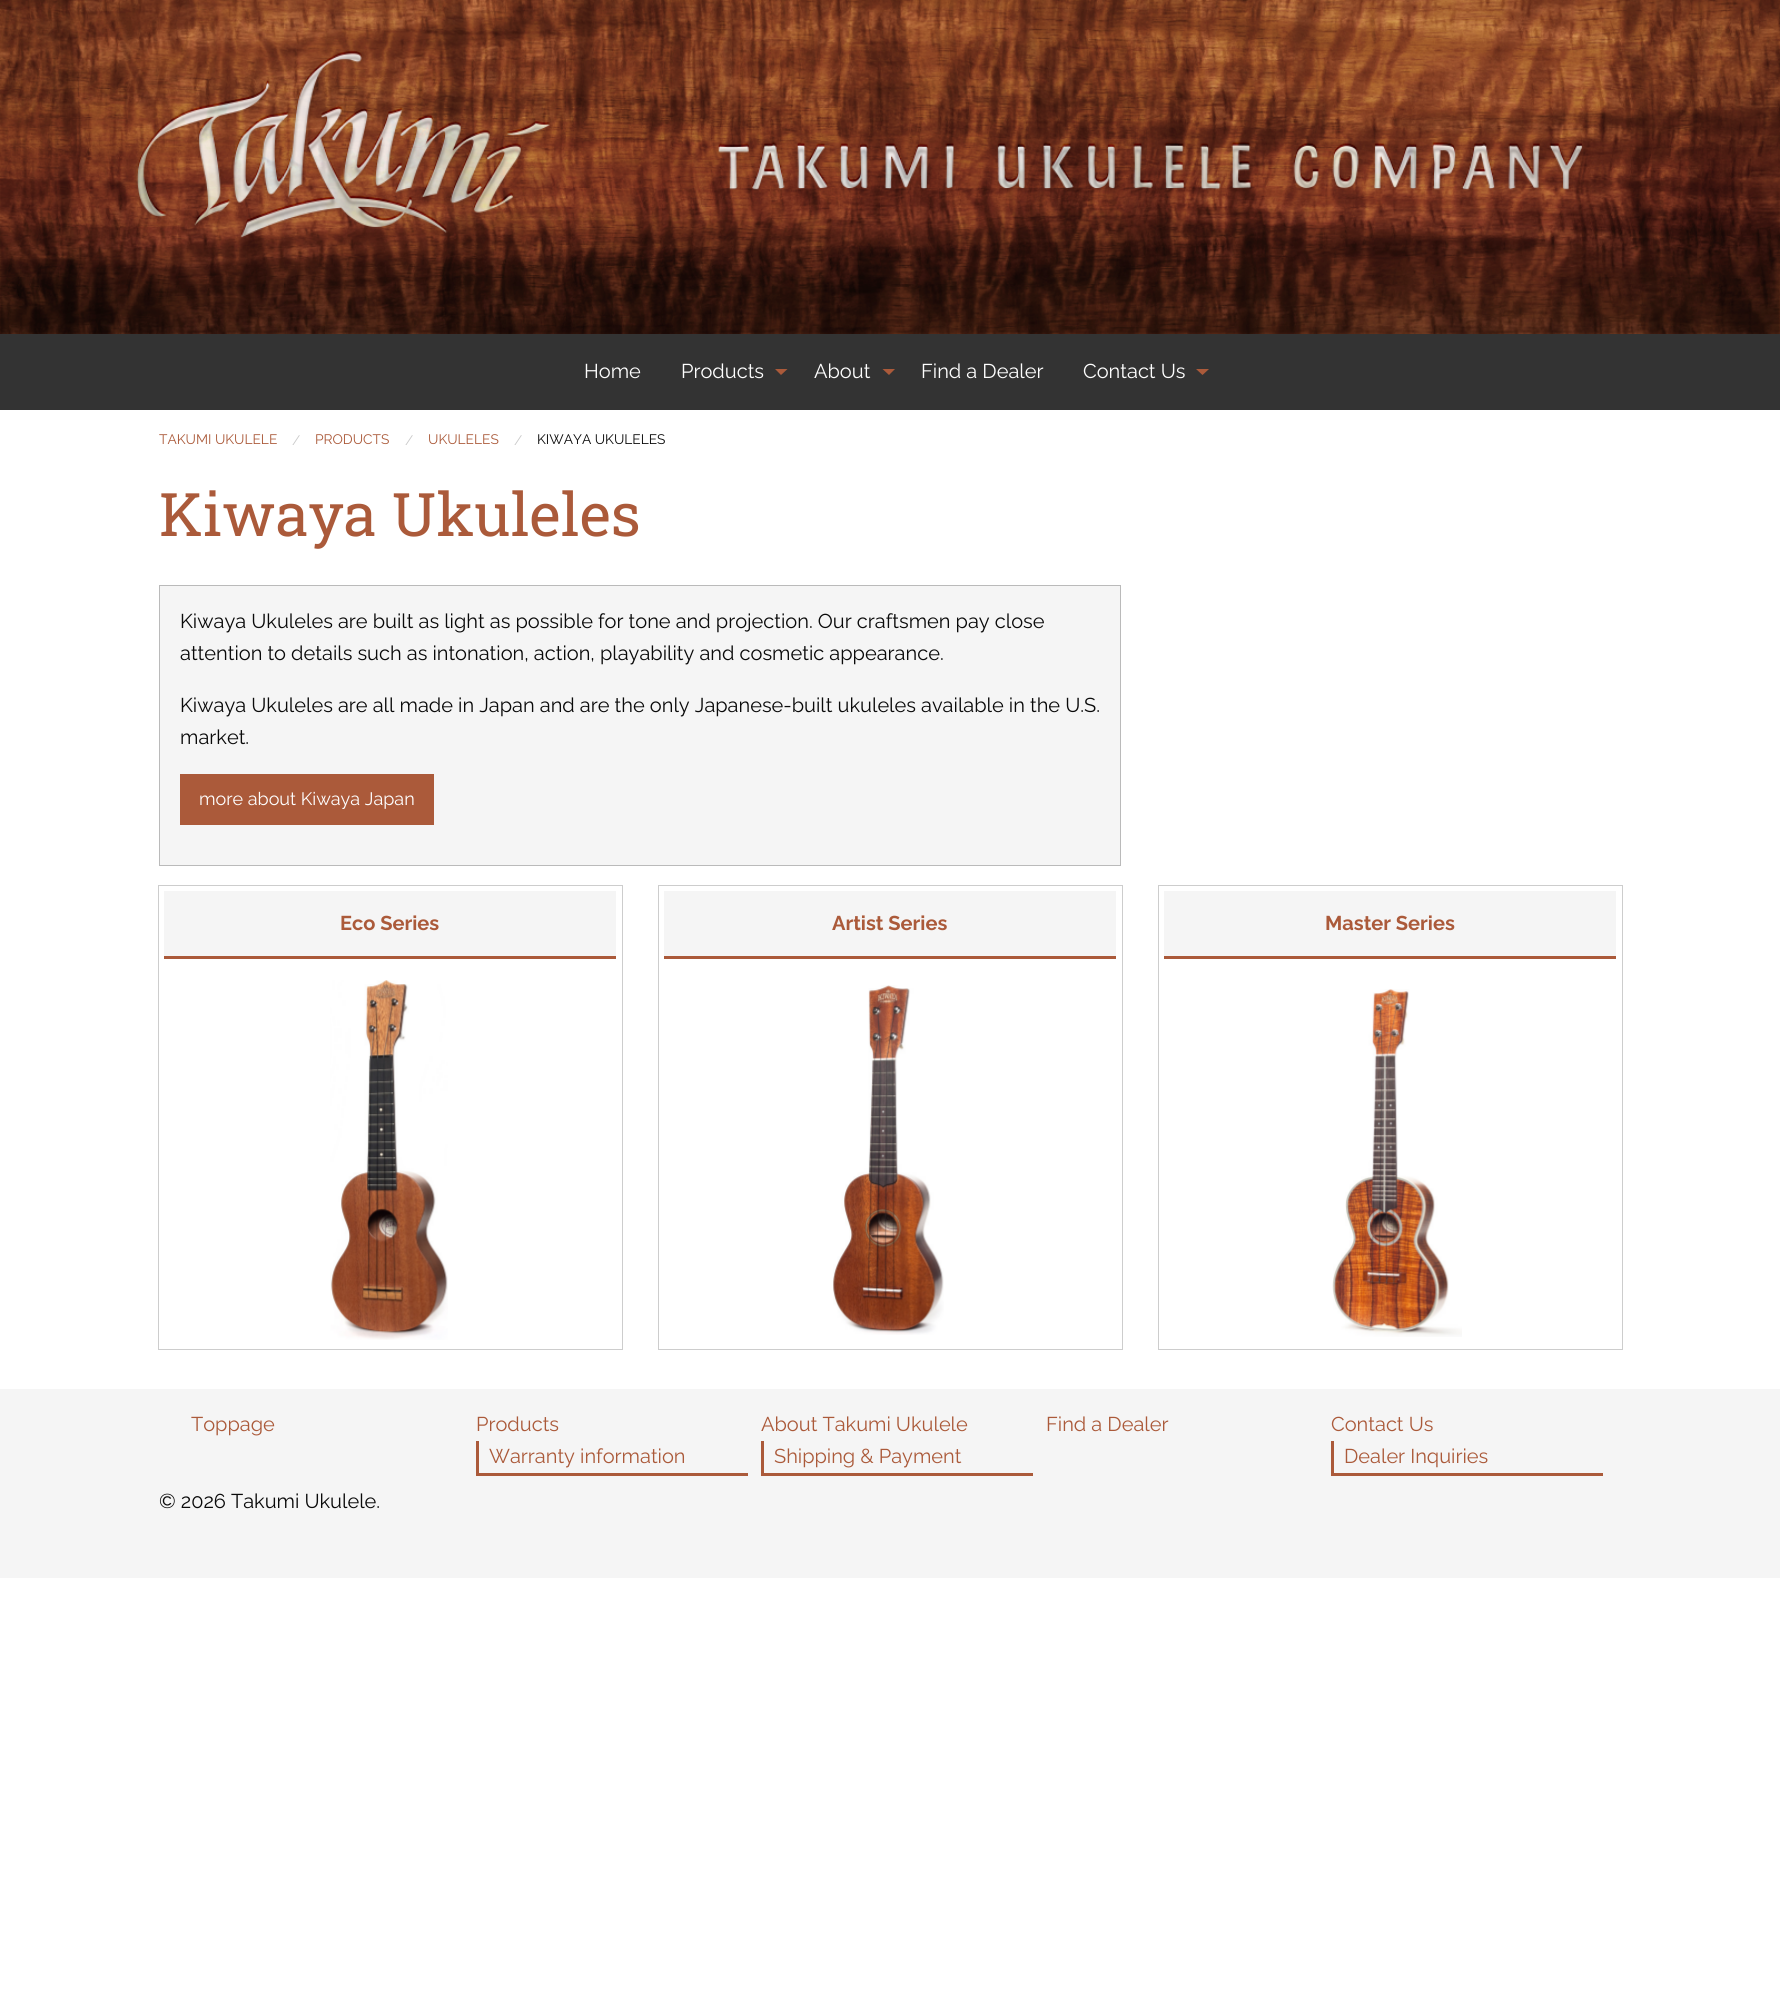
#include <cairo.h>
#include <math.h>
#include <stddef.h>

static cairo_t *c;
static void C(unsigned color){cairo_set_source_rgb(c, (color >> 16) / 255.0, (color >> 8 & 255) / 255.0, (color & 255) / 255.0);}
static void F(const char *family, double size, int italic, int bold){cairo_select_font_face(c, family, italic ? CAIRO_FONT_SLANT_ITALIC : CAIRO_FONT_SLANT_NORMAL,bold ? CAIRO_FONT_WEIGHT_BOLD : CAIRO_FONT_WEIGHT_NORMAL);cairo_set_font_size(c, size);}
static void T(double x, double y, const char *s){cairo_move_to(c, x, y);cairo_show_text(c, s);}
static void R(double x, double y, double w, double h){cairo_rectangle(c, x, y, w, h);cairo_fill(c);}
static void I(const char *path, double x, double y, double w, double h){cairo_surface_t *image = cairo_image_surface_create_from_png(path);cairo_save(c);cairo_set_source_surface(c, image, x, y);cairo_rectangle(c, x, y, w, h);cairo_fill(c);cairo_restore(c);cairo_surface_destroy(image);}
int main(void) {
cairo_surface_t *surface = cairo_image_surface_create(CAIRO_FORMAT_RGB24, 1780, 2003);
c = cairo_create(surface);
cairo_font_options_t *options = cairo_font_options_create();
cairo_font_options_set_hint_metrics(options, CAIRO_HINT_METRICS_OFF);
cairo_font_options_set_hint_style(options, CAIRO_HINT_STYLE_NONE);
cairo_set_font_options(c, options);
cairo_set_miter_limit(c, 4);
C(0xffffff);
cairo_paint(c);
I("1.png",0,0,1780,334);
C(0x333333);
R(0,334,1780,76);
F("Raleway",20,0,0);
C(0xfefefe);
T(584,378,"Home");
T(681,378,"Products");
C(0xab5a3a);
cairo_new_path(c);
cairo_move_to(c,775,369);
cairo_line_to(c,787.5,369);
cairo_line_to(c,781,375);
cairo_close_path(c);
cairo_fill(c);
C(0xfefefe);
T(814,378,"About");
C(0xab5a3a);
cairo_new_path(c);
cairo_move_to(c,882.5,369);
cairo_line_to(c,895,369);
cairo_line_to(c,889,375);
cairo_close_path(c);
cairo_fill(c);
C(0xfefefe);
T(921,378,"Find a Dealer");
T(1083,378,"Contact Us");
C(0xab5a3a);
cairo_new_path(c);
cairo_move_to(c,1196,369);
cairo_line_to(c,1209,369);
cairo_line_to(c,1202.5,375);
cairo_close_path(c);
cairo_fill(c);
F("Raleway",13.75,0,0);
T(159,444,"TAKUMI UKULELE");
C(0xcacaca);
T(292,445,"/");
C(0xab5a3a);
T(315,444,"PRODUCTS");
C(0xcacaca);
T(405,445,"/");
C(0xab5a3a);
T(428,444,"UKULELES");
C(0xcacaca);
T(514,445,"/");
C(0x0a0a0a);
T(537,444,"KIWAYA UKULELES");
F("Roboto Slab",60,0,0);
C(0xab5a3a);
T(159,536,"Kiwaya Ukuleles");
C(0xf5f5f5);
cairo_rectangle(c,159.5,585.5,961,280);
cairo_fill_preserve(c);
C(0xbababa);
cairo_set_line_width(c,1);
cairo_stroke(c);
F("Raleway",20,0,0);
C(0x0a0a0a);
T(180,628,"Kiwaya Ukuleles are built as light as possible for tone and projection. Our craftsmen pay close");
T(180,660,"attention to details such as intonation, action, playability and cosmetic appearance.");
T(180,712,"Kiwaya Ukuleles are all made in Japan and are the only Japanese-built ukuleles available in the U.S.");
T(180,744,"market.");
C(0xab5a3a);
R(180,774,254,51);
F("Raleway",18,0,0);
C(0xfefefe);
T(199,805,"more about Kiwaya Japan");
cairo_rectangle(c,158.5,885.5,464,464);
C(0xcdcdcd);
cairo_stroke(c);
C(0xf5f5f5);
R(164,891,452,65);
C(0xab5a3a);
R(164,956,452,3);
F("Raleway",20,0,1);
T(340,930,"Eco Series");
I("2.png",330,980,118,360);
cairo_rectangle(c,658.5,885.5,464,464);
C(0xcdcdcd);
cairo_stroke(c);
C(0xf5f5f5);
R(664,891,452,65);
C(0xab5a3a);
R(664,956,452,3);
T(832,930,"Artist Series");
I("3.png",833,985,111,350);
cairo_rectangle(c,1158.5,885.5,464,464);
C(0xcdcdcd);
cairo_stroke(c);
C(0xf5f5f5);
R(1164,891,452,65);
C(0xab5a3a);
R(1164,956,452,3);
T(1325,930,"Master Series");
I("4.png",1332,989,130,348);
C(0xf5f5f5);
R(0,1389,1780,189);
F("Raleway",20,0,0);
C(0xab5a3a);
T(191,1431,"Toppage");
T(476,1431,"Products");
R(476,1473,272,3);
R(476,1441,3,34);
T(489,1463,"Warranty information");
T(761,1431,"About Takumi Ukulele");
R(761,1473,272,3);
R(761,1441,3,34);
T(774,1463,"Shipping & Payment");
T(1046,1431,"Find a Dealer");
T(1331,1431,"Contact Us");
R(1331,1473,272,3);
R(1331,1441,3,34);
T(1344,1463,"Dealer Inquiries");
C(0x0a0a0a);
T(159,1508,"© 2026 Takumi Ukulele.");
cairo_surface_write_to_png(surface, "o.png");
cairo_font_options_destroy(options);
cairo_destroy(c);
cairo_surface_destroy(surface);
return 0;
}
